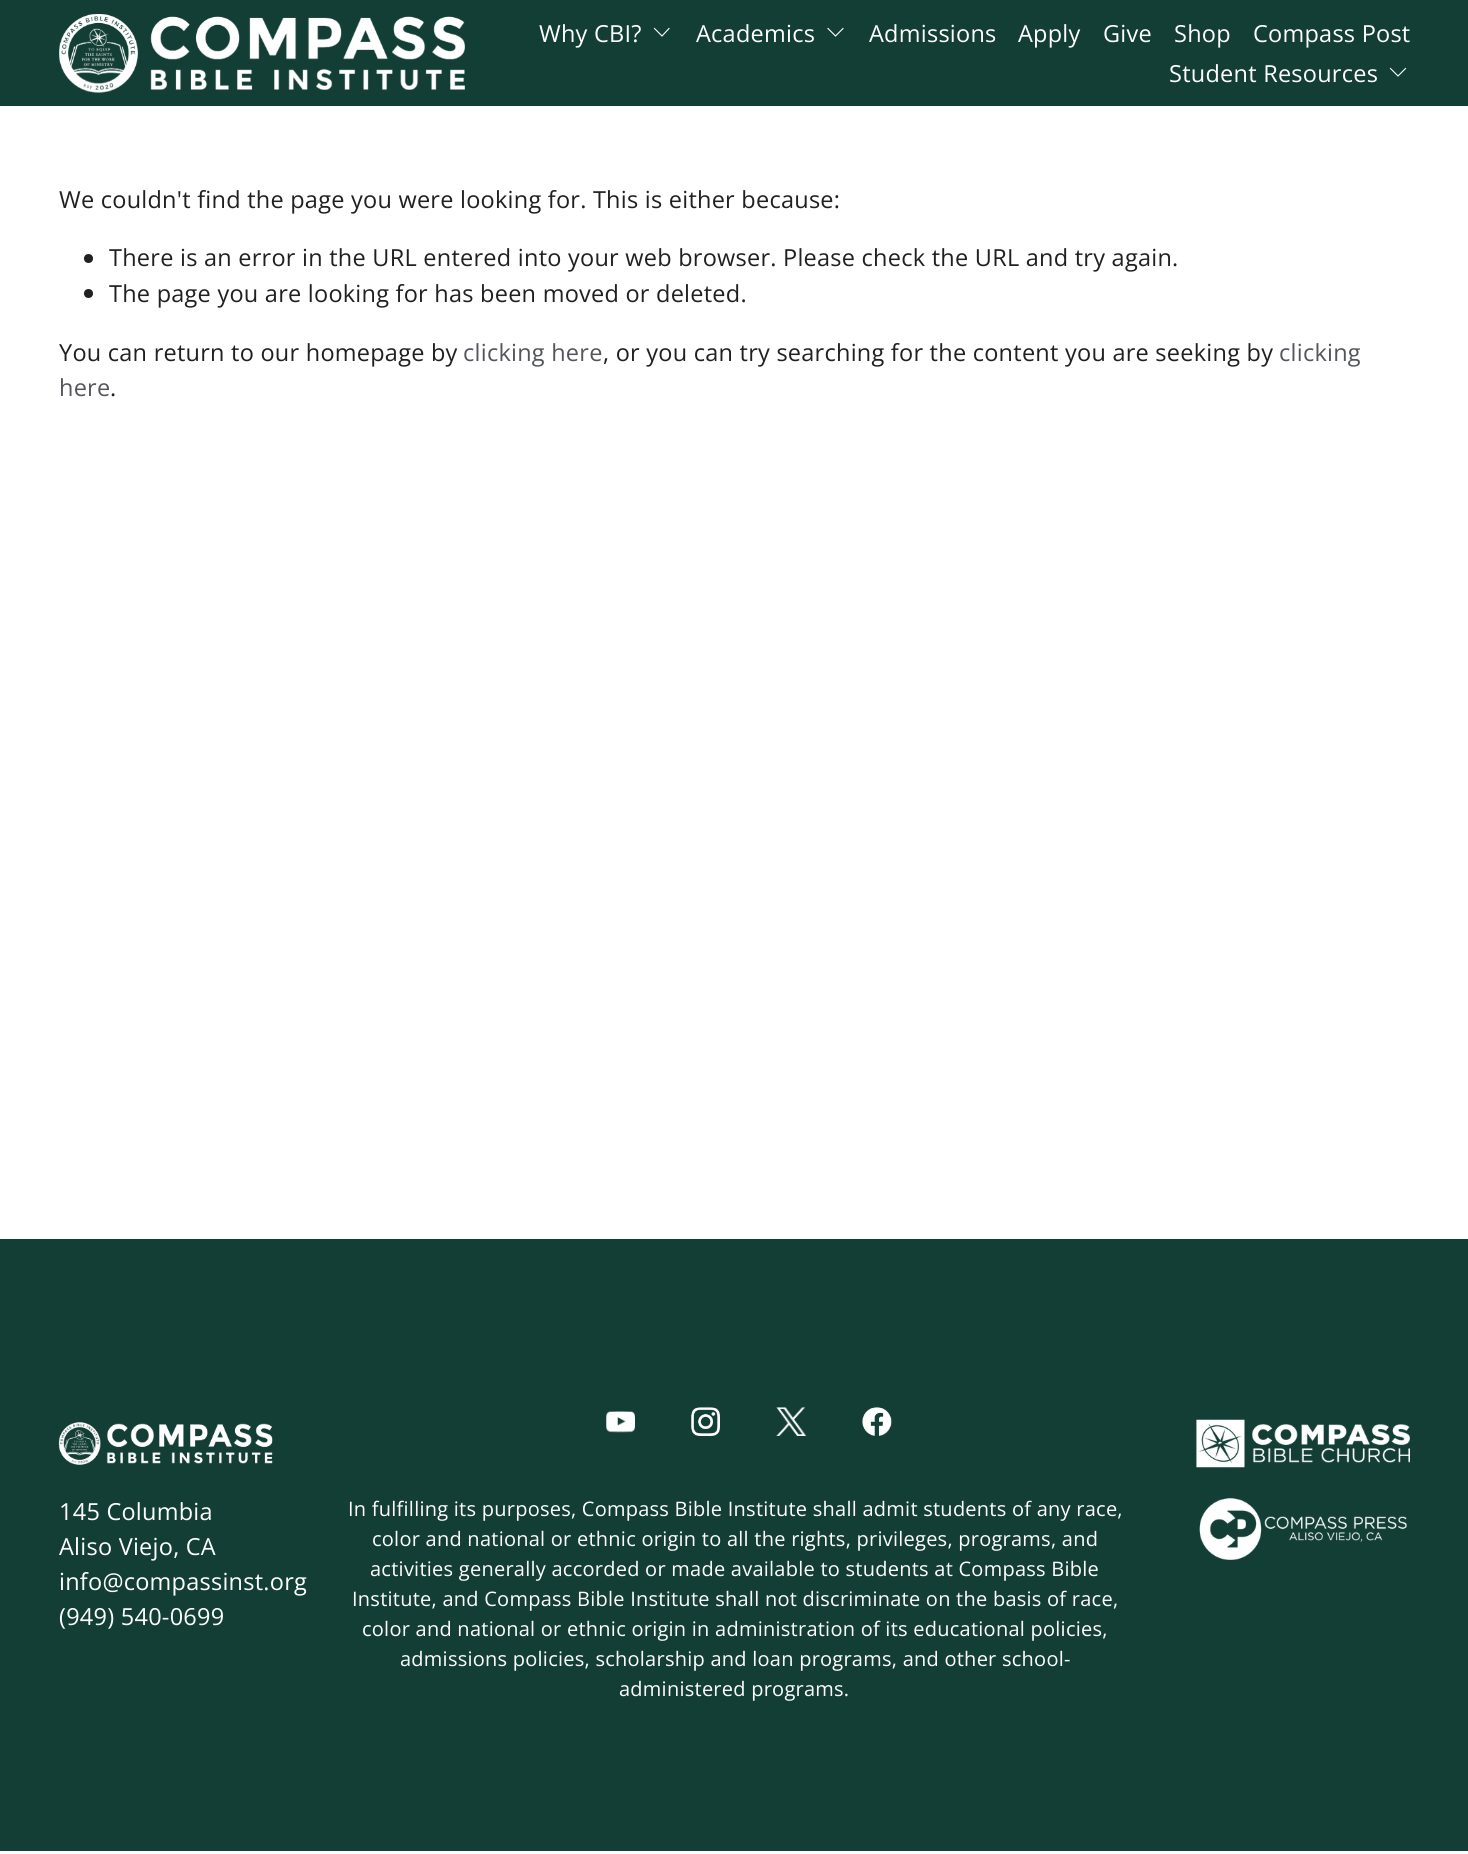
#include <cairo.h>
#include <math.h>
#include <stddef.h>

static cairo_t *c;
static void C(unsigned color){cairo_set_source_rgb(c, (color >> 16) / 255.0, (color >> 8 & 255) / 255.0, (color & 255) / 255.0);}
static void F(const char *family, double size, int italic, int bold){cairo_select_font_face(c, family, italic ? CAIRO_FONT_SLANT_ITALIC : CAIRO_FONT_SLANT_NORMAL,bold ? CAIRO_FONT_WEIGHT_BOLD : CAIRO_FONT_WEIGHT_NORMAL);cairo_set_font_size(c, size);}
static void L(double x, double y, const char *s, double letter, double word){cairo_move_to(c, x, y);while (*s) {char ch[5] = {0};int n = 0;do ch[n++] = *s++; while ((*s & 0xC0) == 0x80);cairo_show_text(c, ch);cairo_rel_move_to(c, letter + word * (*ch == ' '), 0);}}
static void R(double x, double y, double w, double h){cairo_rectangle(c, x, y, w, h);cairo_fill(c);}
static void I(const char *path, double x, double y, double w, double h){cairo_surface_t *image = cairo_image_surface_create_from_png(path);cairo_save(c);cairo_set_source_surface(c, image, x, y);cairo_rectangle(c, x, y, w, h);cairo_fill(c);cairo_restore(c);cairo_surface_destroy(image);}
int main(void) {
cairo_surface_t *surface = cairo_image_surface_create(CAIRO_FORMAT_RGB24, 1468, 1854);
c = cairo_create(surface);
cairo_font_options_t *options = cairo_font_options_create();
cairo_font_options_set_hint_metrics(options, CAIRO_HINT_METRICS_OFF);
cairo_font_options_set_hint_style(options, CAIRO_HINT_STYLE_NONE);
cairo_set_font_options(c, options);
cairo_set_miter_limit(c, 4);
C(0xffffff);
cairo_paint(c);
C(0x133e35);
R(0,0,1468,106);
I("1.png",59,14,406,79);
F("Open Sans",23.5,0,0);
C(0xffffff);
L(539,42,"Why CBI?",.25,0);
cairo_new_path(c);
cairo_move_to(c,669,28.5);
cairo_line_to(c,662,36);
cairo_line_to(c,654.5,28.5);
cairo_set_line_width(c,1.1);
cairo_set_line_cap(c,CAIRO_LINE_CAP_SQUARE);
cairo_stroke(c);
L(696,42,"Academics",.25,0);
cairo_new_path(c);
cairo_move_to(c,843,28.5);
cairo_line_to(c,835.5,36);
cairo_line_to(c,828,28.5);
cairo_stroke(c);
L(869,42,"Admissions",.25,0);
L(1018,42,"Apply",.25,0);
L(1103,42,"Give",.25,0);
L(1174,42,"Shop",.25,0);
L(1253,42,"Compass Post",.25,0);
L(1169,82,"Student Resources",.25,0);
cairo_new_path(c);
cairo_move_to(c,1405.5,68.5);
cairo_line_to(c,1398,76);
cairo_line_to(c,1390.5,68.5);
cairo_stroke(c);
C(0x212020);
L(59,208,"We couldn't find the page you were looking for. This is either because:",.25,0);
cairo_new_path(c);
cairo_arc(c,88.5,258.5,4.5,0,2 * M_PI);
cairo_fill(c);
L(109,266,"There is an error in the URL entered into your web browser. Please check the URL and try again.",.25,0);
cairo_new_path(c);
cairo_arc(c,88.5,293.5,4.5,0,2 * M_PI);
cairo_fill(c);
L(109,302,"The page you are looking for has been moved or deleted.",.25,0);
L(59,361,"You can return to our homepage by",.25,0);
C(0x54565b);
L(463,361,"clicking here",.25,0);
C(0x212020);
L(603,361,", or you can try searching for the content you are seeking by",.25,0);
C(0x54565b);
L(1279,361,"clicking",.25,0);
L(59,396,"here",.25,0);
C(0x212020);
L(110,396,".",.25,0);
C(0x133e35);
R(0,1239,1468,612);
I("2.png",58,1422,215,43);
I("3.png",606,1411,29,22);
I("4.png",691,1407,29,29);
I("5.png",776,1407,31,29);
I("6.png",862,1407,30,29);
I("7.png",1196,1419,214,49);
C(0xffffff);
L(59,1520,"145 Columbia",.25,0);
L(59,1555,"Aliso Viejo, CA",.25,0);
L(59,1590,"info@compassinst.org",.25,0);
L(59,1625,"(949) 540-0699",.25,0);
F("Open Sans",20,0,0);
L(348,1516,"In fulfilling its purposes, Compass Bible Institute shall admit students of any race,",.25,0);
L(372,1546,"color and national or ethnic origin to all the rights, privileges, programs, and",.25,0);
L(370,1576,"activities generally accorded or made available to students at Compass Bible",.25,0);
L(352,1606,"Institute, and Compass Bible Institute shall not discriminate on the basis of race,",.25,0);
L(362,1636,"color and national or ethnic origin in administration of its educational policies,",.25,0);
L(400,1666,"admissions policies, scholarship and loan programs, and other school-",.25,0);
L(619,1696,"administered programs.",.25,0);
I("8.png",1199,1498,208,62);
cairo_surface_write_to_png(surface, "o.png");
cairo_font_options_destroy(options);
cairo_destroy(c);
cairo_surface_destroy(surface);
return 0;
}
